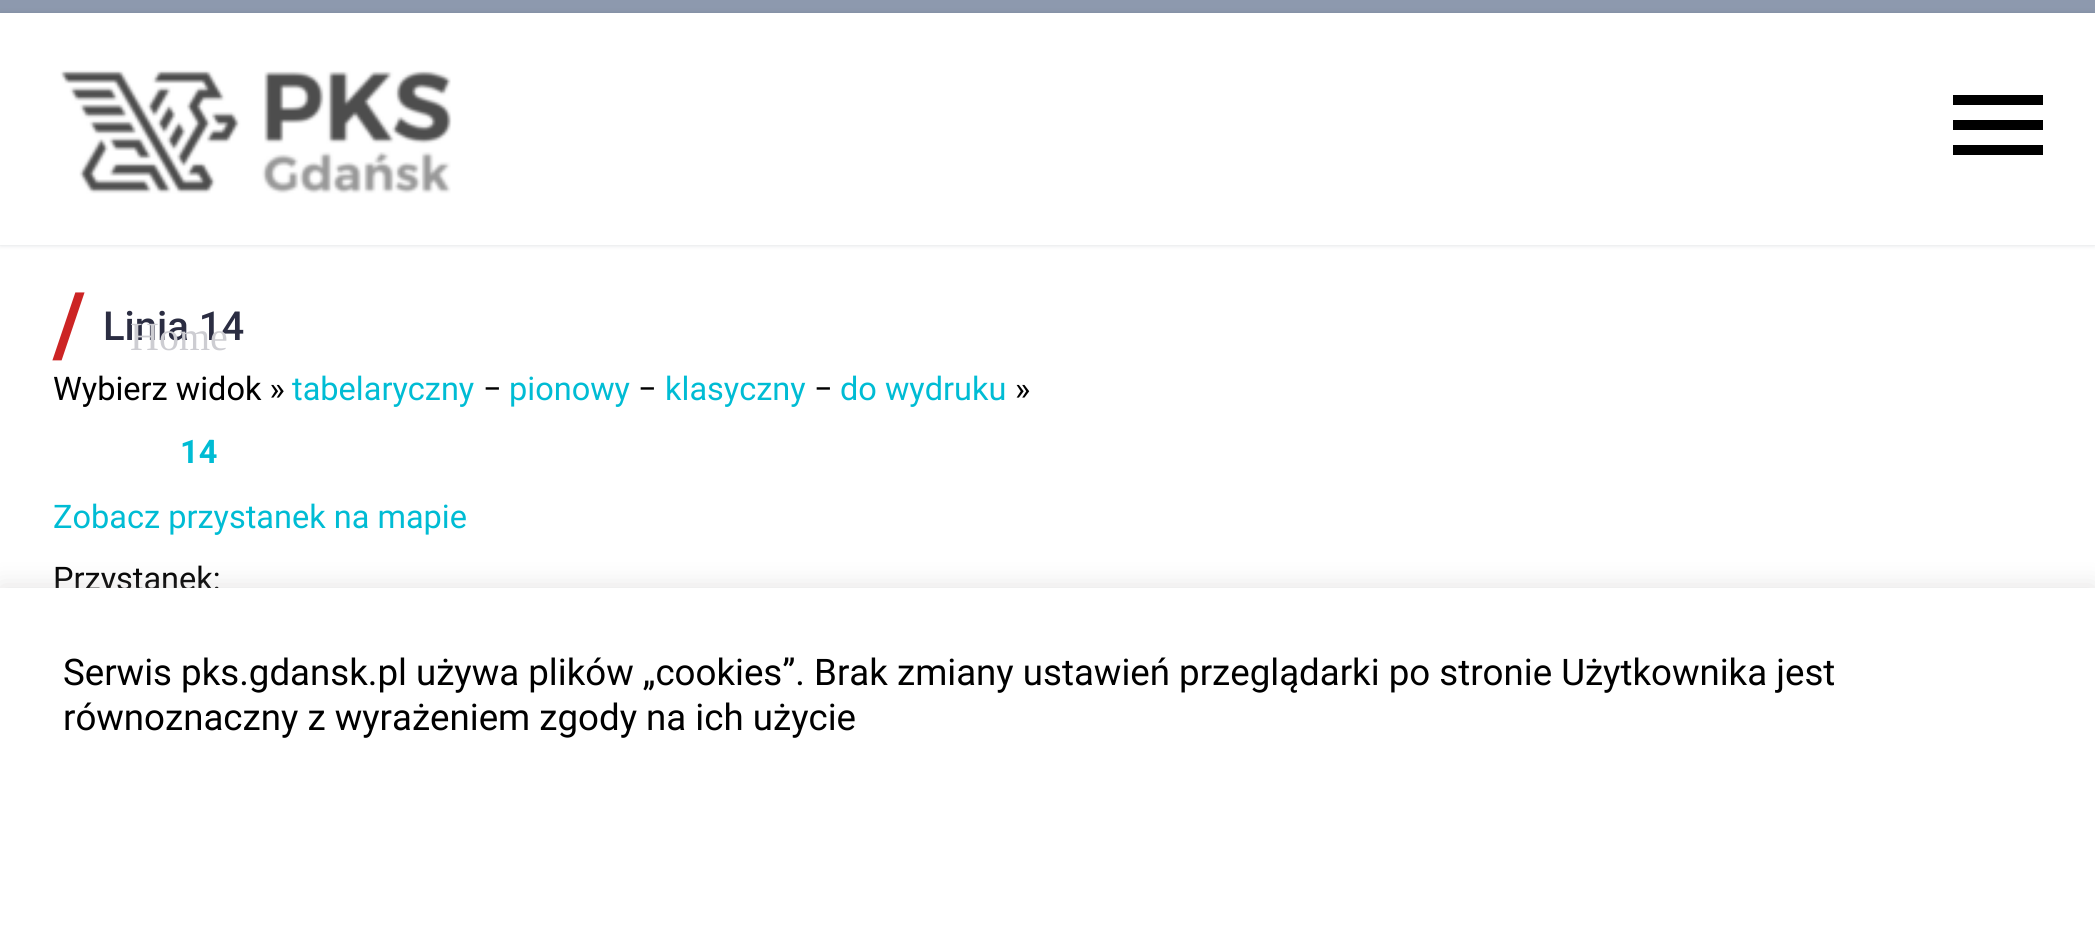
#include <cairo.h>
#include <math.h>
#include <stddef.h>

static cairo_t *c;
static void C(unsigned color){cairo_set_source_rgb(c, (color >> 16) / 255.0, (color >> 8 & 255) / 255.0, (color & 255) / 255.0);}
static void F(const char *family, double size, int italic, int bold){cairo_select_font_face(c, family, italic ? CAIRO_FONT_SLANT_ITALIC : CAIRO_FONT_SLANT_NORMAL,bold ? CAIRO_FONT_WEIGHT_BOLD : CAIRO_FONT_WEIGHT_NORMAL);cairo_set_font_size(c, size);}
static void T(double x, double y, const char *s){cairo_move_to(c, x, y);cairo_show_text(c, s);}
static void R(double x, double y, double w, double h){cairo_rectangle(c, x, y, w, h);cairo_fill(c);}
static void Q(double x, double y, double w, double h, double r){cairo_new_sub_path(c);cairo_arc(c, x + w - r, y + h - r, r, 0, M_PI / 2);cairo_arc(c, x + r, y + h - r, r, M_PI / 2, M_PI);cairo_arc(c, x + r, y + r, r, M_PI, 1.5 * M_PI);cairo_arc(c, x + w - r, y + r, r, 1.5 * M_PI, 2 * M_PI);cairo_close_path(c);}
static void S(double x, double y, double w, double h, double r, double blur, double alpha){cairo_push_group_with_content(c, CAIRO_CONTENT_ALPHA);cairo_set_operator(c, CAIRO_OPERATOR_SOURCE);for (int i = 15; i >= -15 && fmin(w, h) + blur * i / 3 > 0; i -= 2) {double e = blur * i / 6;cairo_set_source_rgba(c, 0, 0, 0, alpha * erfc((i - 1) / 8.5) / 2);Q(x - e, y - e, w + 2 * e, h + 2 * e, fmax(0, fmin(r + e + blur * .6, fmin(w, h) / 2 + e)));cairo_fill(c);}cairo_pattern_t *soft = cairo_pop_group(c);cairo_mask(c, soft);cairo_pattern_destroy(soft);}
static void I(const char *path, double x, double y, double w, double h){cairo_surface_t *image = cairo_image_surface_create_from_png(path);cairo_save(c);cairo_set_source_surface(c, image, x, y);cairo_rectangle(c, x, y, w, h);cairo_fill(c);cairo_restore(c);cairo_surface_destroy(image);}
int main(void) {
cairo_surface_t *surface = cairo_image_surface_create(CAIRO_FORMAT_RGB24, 2095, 930);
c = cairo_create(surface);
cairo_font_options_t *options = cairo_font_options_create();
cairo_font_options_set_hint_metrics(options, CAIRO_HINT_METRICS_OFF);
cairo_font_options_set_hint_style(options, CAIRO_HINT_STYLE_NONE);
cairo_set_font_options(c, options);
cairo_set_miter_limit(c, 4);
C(0xffffff);
cairo_paint(c);
F("Roboto",88,0,1);
C(0xcc2424);
T(53,355,"/");
F("Roboto Medium",40,0,0);
C(0x2b2d42);
T(103,340,"Linia 14");
F("Roboto",32.5,0,0);
C(0x000000);
T(53,400,"Wybierz widok »");
C(0x00bcd4);
T(292,400,"tabelaryczny");
C(0x000000);
T(483,400,"−");
C(0x00bcd4);
T(509,400,"pionowy");
C(0x000000);
T(638,400,"−");
C(0x00bcd4);
T(665,400,"klasyczny");
C(0x000000);
T(814,400,"−");
C(0x00bcd4);
T(840,400,"do wydruku");
C(0x000000);
T(1015,400,"»");
F("Roboto",32.5,0,1);
C(0x00bcd4);
T(180,463,"14");
F("Roboto",32.5,0,0);
T(53,528,"Zobacz przystanek na mapie");
C(0x000000);
T(53,590,"Przystanek:");
C(0x8d99ae);
R(0,0,2095,13);
cairo_save(c);
cairo_set_fill_rule(c,CAIRO_FILL_RULE_EVEN_ODD);
cairo_new_path(c);
cairo_move_to(c,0,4);
cairo_line_to(c,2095,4);
cairo_line_to(c,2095,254);
cairo_line_to(c,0,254);
cairo_close_path(c);
cairo_move_to(c,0,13);
cairo_line_to(c,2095,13);
cairo_line_to(c,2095,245);
cairo_line_to(c,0,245);
cairo_close_path(c);
cairo_clip(c);
C(0x384554);
S(0,13,2095,232,0,2.5,.2);
cairo_restore(c);
I("1.png",60,70,392,124);
C(0x000000);
R(1953,95,90,10);
R(1953,120,90,10);
R(1953,145,90,10);
F("Liberation Serif",40,0,0);
C(0xcdcdd2);
T(130,350,"Home");
C(0xacabab);
S(0,585,2095,343,0,12.5,.3);
C(0xffffff);
R(0,588,2095,342);
F("Roboto",36.65,0,0);
C(0x000000);
T(63,685,"Serwis pks.gdansk.pl używa plików „cookies”. Brak zmiany ustawień przeglądarki po stronie Użytkownika jest");
T(63,730,"równoznaczny z wyrażeniem zgody na ich użycie");
cairo_surface_write_to_png(surface, "o.png");
cairo_font_options_destroy(options);
cairo_destroy(c);
cairo_surface_destroy(surface);
return 0;
}
